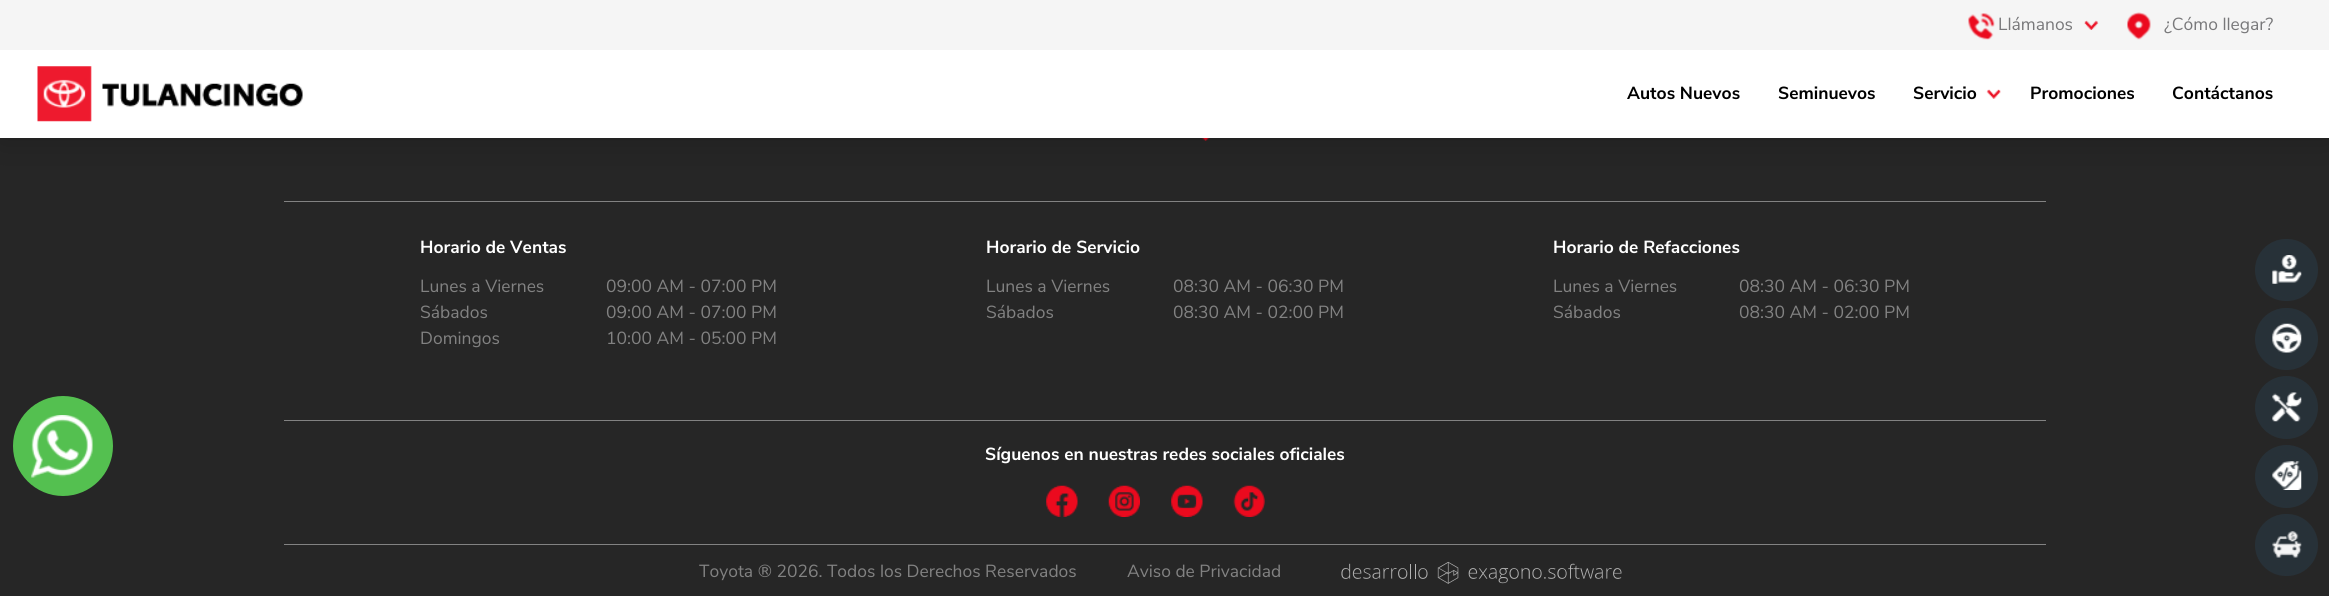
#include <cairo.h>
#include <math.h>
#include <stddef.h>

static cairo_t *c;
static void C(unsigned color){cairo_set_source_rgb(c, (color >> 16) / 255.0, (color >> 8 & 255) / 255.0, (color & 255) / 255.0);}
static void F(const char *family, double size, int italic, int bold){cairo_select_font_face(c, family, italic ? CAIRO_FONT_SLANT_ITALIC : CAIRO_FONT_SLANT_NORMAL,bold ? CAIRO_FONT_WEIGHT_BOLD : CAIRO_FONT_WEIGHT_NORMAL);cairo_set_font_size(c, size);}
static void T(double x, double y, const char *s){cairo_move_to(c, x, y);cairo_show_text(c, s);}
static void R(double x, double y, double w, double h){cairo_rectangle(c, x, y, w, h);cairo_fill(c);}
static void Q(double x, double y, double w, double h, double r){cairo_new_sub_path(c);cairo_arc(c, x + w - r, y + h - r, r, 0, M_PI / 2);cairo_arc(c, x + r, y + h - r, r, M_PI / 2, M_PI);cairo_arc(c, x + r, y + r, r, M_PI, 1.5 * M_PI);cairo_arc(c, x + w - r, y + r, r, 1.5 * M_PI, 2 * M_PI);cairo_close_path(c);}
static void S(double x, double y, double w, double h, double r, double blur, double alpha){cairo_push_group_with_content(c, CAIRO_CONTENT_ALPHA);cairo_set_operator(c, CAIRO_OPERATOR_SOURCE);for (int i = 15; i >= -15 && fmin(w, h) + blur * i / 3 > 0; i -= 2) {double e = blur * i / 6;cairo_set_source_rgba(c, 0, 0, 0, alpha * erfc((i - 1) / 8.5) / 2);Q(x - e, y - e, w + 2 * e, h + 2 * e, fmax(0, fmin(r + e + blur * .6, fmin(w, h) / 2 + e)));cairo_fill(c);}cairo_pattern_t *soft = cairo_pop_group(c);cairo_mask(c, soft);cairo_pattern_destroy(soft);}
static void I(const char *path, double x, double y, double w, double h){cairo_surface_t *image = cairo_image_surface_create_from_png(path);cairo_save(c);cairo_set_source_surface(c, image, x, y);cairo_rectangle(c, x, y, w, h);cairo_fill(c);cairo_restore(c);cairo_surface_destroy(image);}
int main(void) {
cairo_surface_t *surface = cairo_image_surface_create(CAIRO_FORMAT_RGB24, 2329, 596);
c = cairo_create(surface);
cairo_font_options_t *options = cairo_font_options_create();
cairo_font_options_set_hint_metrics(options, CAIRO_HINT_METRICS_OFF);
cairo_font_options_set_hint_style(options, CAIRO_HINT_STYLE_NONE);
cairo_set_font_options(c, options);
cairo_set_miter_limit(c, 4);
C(0x262626);
cairo_paint(c);
I("6.png",1201,138,9,3);
C(0x000000);
S(0,0,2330,138,0,19,.2);
C(0xf5f5f5);
R(0,0,2329,50);
I("1.png",2084,20,15,10);
I("2.png",1968,13,27,27);
F("Nunito Sans",17.5,0,0);
C(0x78787a);
T(1998,30,"Llámanos");
I("3.png",2127,12,24,28);
T(2164,30,"¿Cómo llegar?");
C(0xffffff);
R(0,50,2329,88);
I("4.png",37,66,266,56);
F("Nunito Sans",17.5,0,1);
C(0x000000);
T(1627,99,"Autos Nuevos");
T(1778,99,"Seminuevos");
T(1913,99,"Servicio");
I("5.png",1986,89,15,10);
T(2030,99,"Promociones");
T(2172,99,"Contáctanos");
C(0x828282);
R(284,201,1762,1);
C(0xffffff);
T(420,253,"Horario de Ventas");
F("Nunito Sans",17.5,0,0);
C(0x828282);
T(420,292,"Lunes a Viernes");
T(606,292,"09:00 AM - 07:00 PM");
T(420,318,"Sábados");
T(606,318,"09:00 AM - 07:00 PM");
T(420,344,"Domingos");
T(606,344,"10:00 AM - 05:00 PM");
F("Nunito Sans",17.5,0,1);
C(0xffffff);
T(986,253,"Horario de Servicio");
F("Nunito Sans",17.5,0,0);
C(0x828282);
T(986,292,"Lunes a Viernes");
T(1173,292,"08:30 AM - 06:30 PM");
T(986,318,"Sábados");
T(1173,318,"08:30 AM - 02:00 PM");
F("Nunito Sans",17.5,0,1);
C(0xffffff);
T(1553,253,"Horario de Refacciones");
F("Nunito Sans",17.5,0,0);
C(0x828282);
T(1553,292,"Lunes a Viernes");
T(1739,292,"08:30 AM - 06:30 PM");
T(1553,318,"Sábados");
T(1739,318,"08:30 AM - 02:00 PM");
R(284,420,1762,1);
F("Nunito Sans",17.5,0,1);
C(0xffffff);
T(985,460,"Síguenos en nuestras redes sociales oficiales");
I("7.png",1046,485,32,32);
I("8.png",1108,485,32,32);
I("9.png",1171,485,32,32);
I("10.png",1233,485,32,32);
C(0x828282);
R(284,544,1762,1);
F("Nunito Sans",17.5,0,0);
T(699,577,"Toyota ® 2026. Todos los Derechos Reservados");
T(1127,577,"Aviso de Privacidad");
I("11.png",1341,561,281,23);
C(0x273138);
Q(2255,239,63,62,31);
cairo_fill(c);
I("12.png",2272,255,30,29);
Q(2255,308,63,62,31);
cairo_fill(c);
I("13.png",2272,323,30,30);
C(0x54c050);
cairo_arc(c,63,446,50,0,2 * M_PI);
cairo_fill(c);
I("14.png",31,415,62,63);
C(0x273138);
cairo_arc(c,2286.5,407.5,31.5,0,2 * M_PI);
cairo_fill(c);
I("15.png",2272,392,30,30);
cairo_arc(c,2286.5,476.5,31.5,0,2 * M_PI);
cairo_fill(c);
I("16.png",2272,461,30,29);
Q(2255,514,63,62,31);
cairo_fill(c);
I("17.png",2272,531,30,27);
cairo_surface_write_to_png(surface, "o.png");
cairo_font_options_destroy(options);
cairo_destroy(c);
cairo_surface_destroy(surface);
return 0;
}
